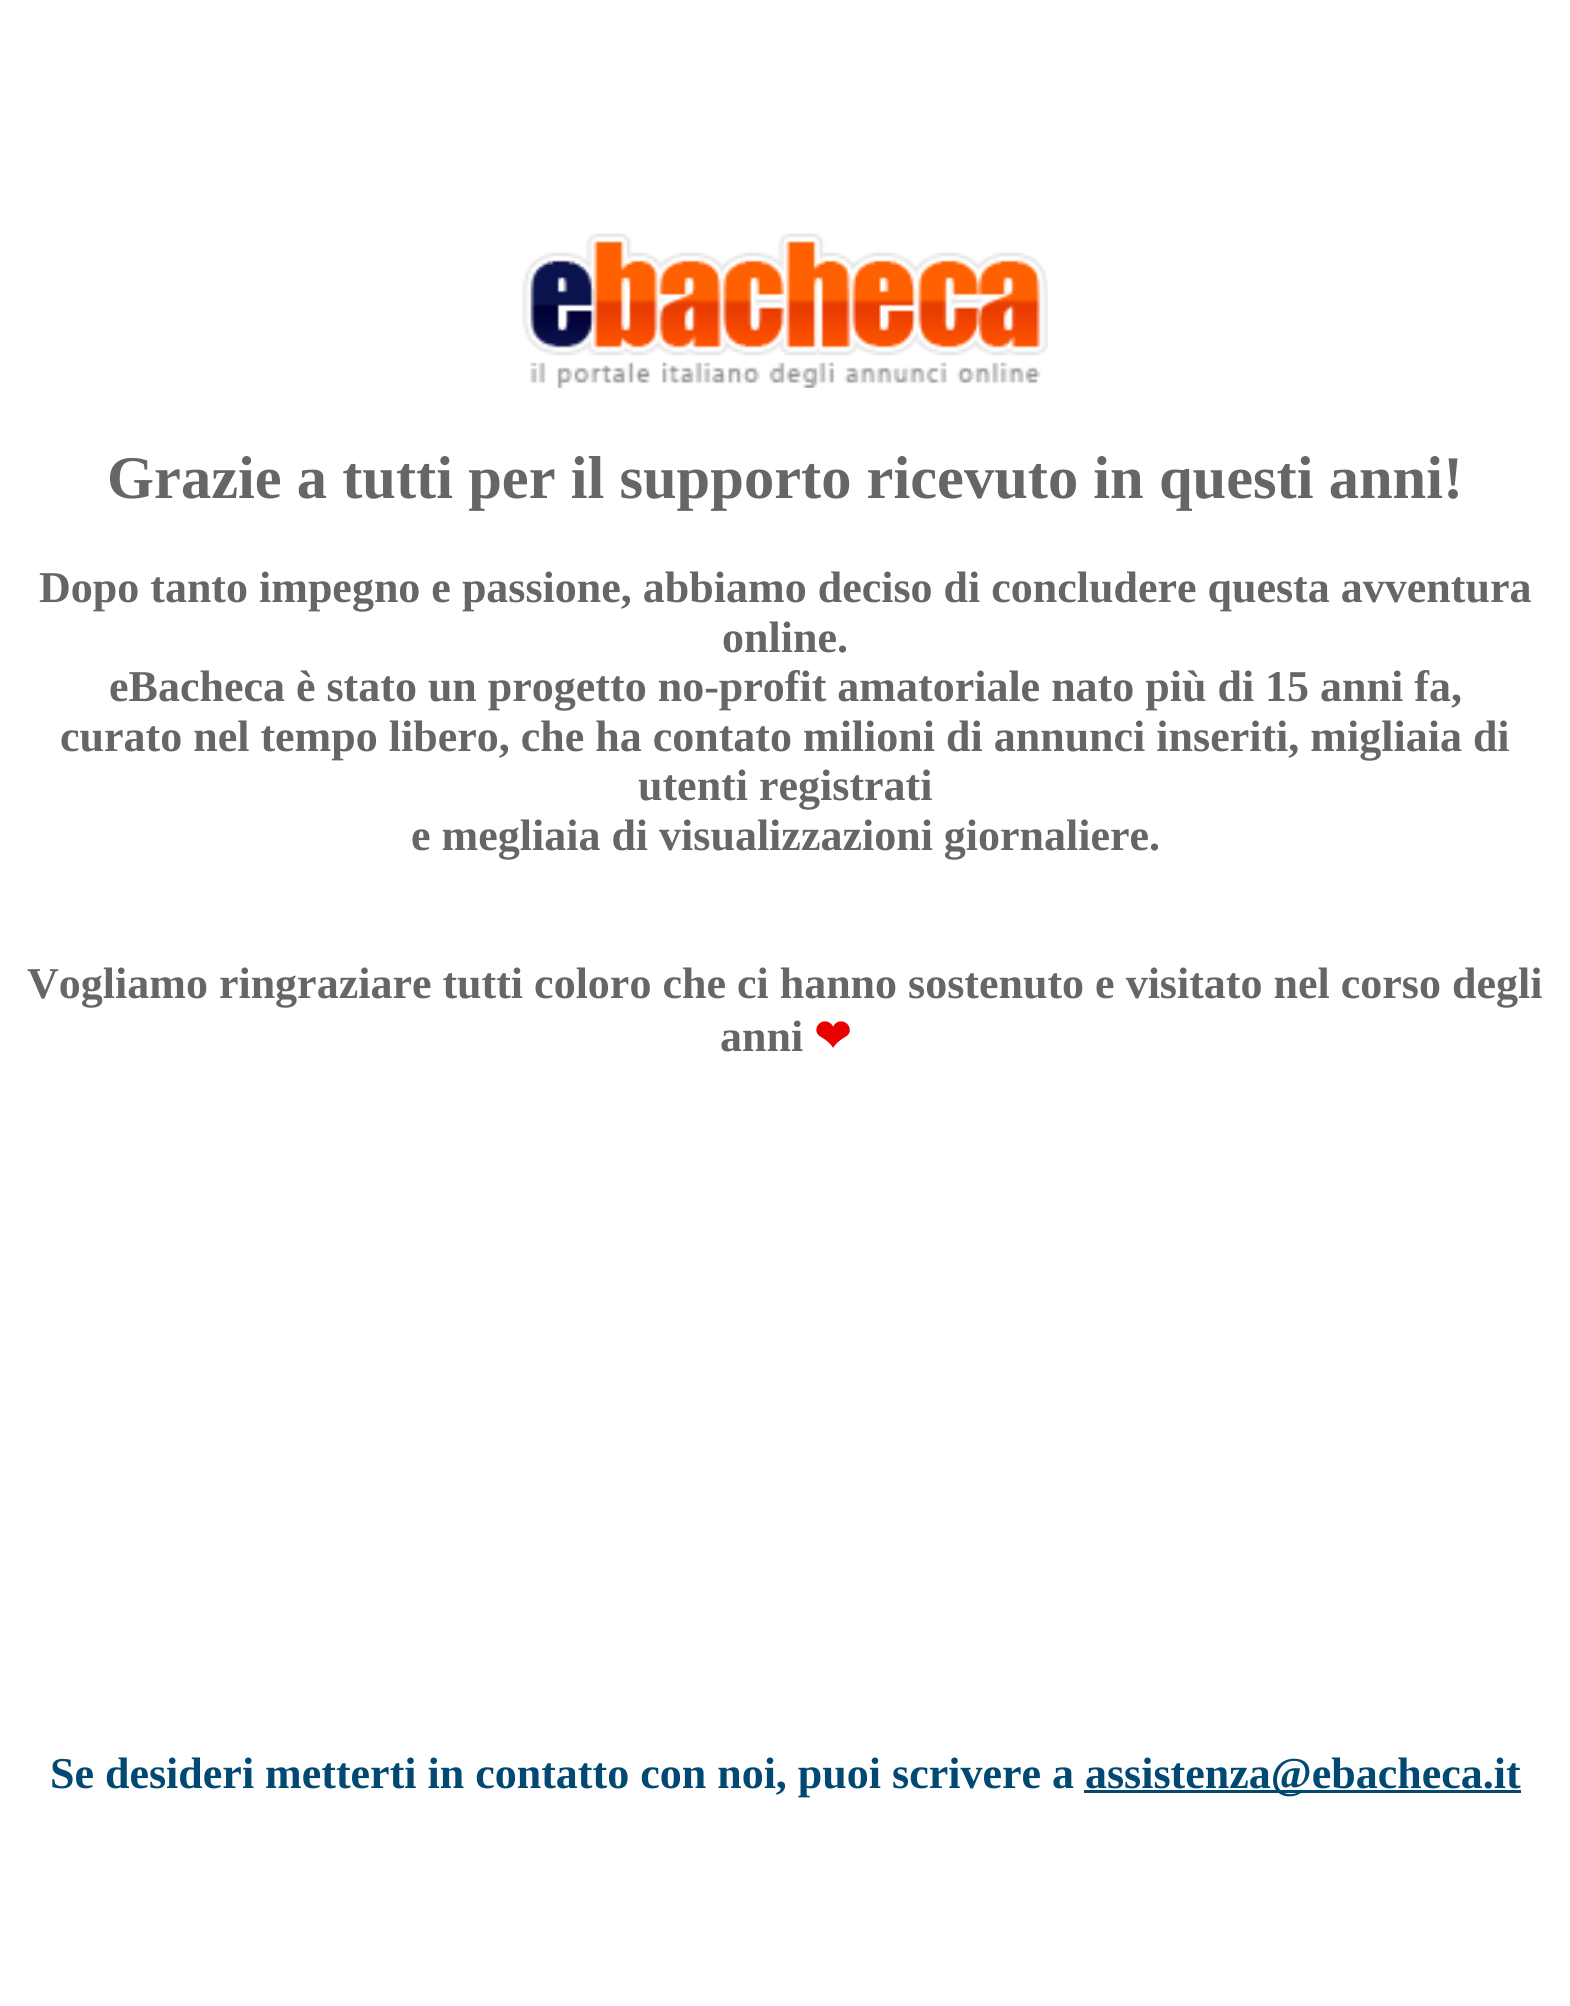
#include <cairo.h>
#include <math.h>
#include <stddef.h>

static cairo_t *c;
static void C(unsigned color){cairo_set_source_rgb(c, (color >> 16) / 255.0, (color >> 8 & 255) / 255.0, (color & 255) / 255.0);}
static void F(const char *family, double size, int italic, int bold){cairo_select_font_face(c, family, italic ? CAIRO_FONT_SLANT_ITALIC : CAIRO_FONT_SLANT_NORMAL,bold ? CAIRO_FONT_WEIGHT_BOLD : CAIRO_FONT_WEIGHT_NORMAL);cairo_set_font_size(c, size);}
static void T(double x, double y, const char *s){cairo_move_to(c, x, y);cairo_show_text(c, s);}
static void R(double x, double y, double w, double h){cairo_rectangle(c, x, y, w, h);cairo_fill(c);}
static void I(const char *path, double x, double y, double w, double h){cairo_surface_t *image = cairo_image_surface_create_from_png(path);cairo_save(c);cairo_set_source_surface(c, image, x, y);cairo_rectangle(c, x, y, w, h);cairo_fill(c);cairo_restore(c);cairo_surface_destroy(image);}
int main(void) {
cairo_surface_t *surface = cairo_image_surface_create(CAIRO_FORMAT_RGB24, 1570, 2006);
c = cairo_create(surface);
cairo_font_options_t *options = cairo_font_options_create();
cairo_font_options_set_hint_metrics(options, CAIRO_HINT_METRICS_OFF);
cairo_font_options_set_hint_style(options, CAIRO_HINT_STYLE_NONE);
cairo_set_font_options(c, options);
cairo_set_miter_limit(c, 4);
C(0xffffff);
cairo_paint(c);
I("1.png",522,233,526,155);
F("Liberation Serif",60.5,0,1);
C(0x666666);
T(107,498,"Grazie a tutti per il supporto ricevuto in questi anni!");
F("Liberation Serif",44,0,1);
T(39,602,"Dopo tanto impegno e passione, abbiamo deciso di concludere questa avventura");
T(722,652,"online.");
T(109,701,"eBacheca è stato un progetto no-profit amatoriale nato più di 15 anni fa,");
T(60,751,"curato nel tempo libero, che ha contato milioni di annunci inseriti, migliaia di");
T(638,800,"utenti registrati");
T(411,850,"e megliaia di visualizzazioni giornaliere.");
T(27,998,"Vogliamo ringraziare tutti coloro che ci hanno sostenuto e visitato nel corso degli");
T(720,1051,"anni");
F("DejaVu Sans",44,0,1);
C(0xe90000);
T(814,1051,"❤");
F("Liberation Serif",44,0,1);
C(0x014973);
T(50,1788,"Se desideri metterti in contatto con noi, puoi scrivere a");
R(1084,1790,437,3);
T(1085,1788,"assistenza@ebacheca.it");
cairo_surface_write_to_png(surface, "o.png");
cairo_font_options_destroy(options);
cairo_destroy(c);
cairo_surface_destroy(surface);
return 0;
}
